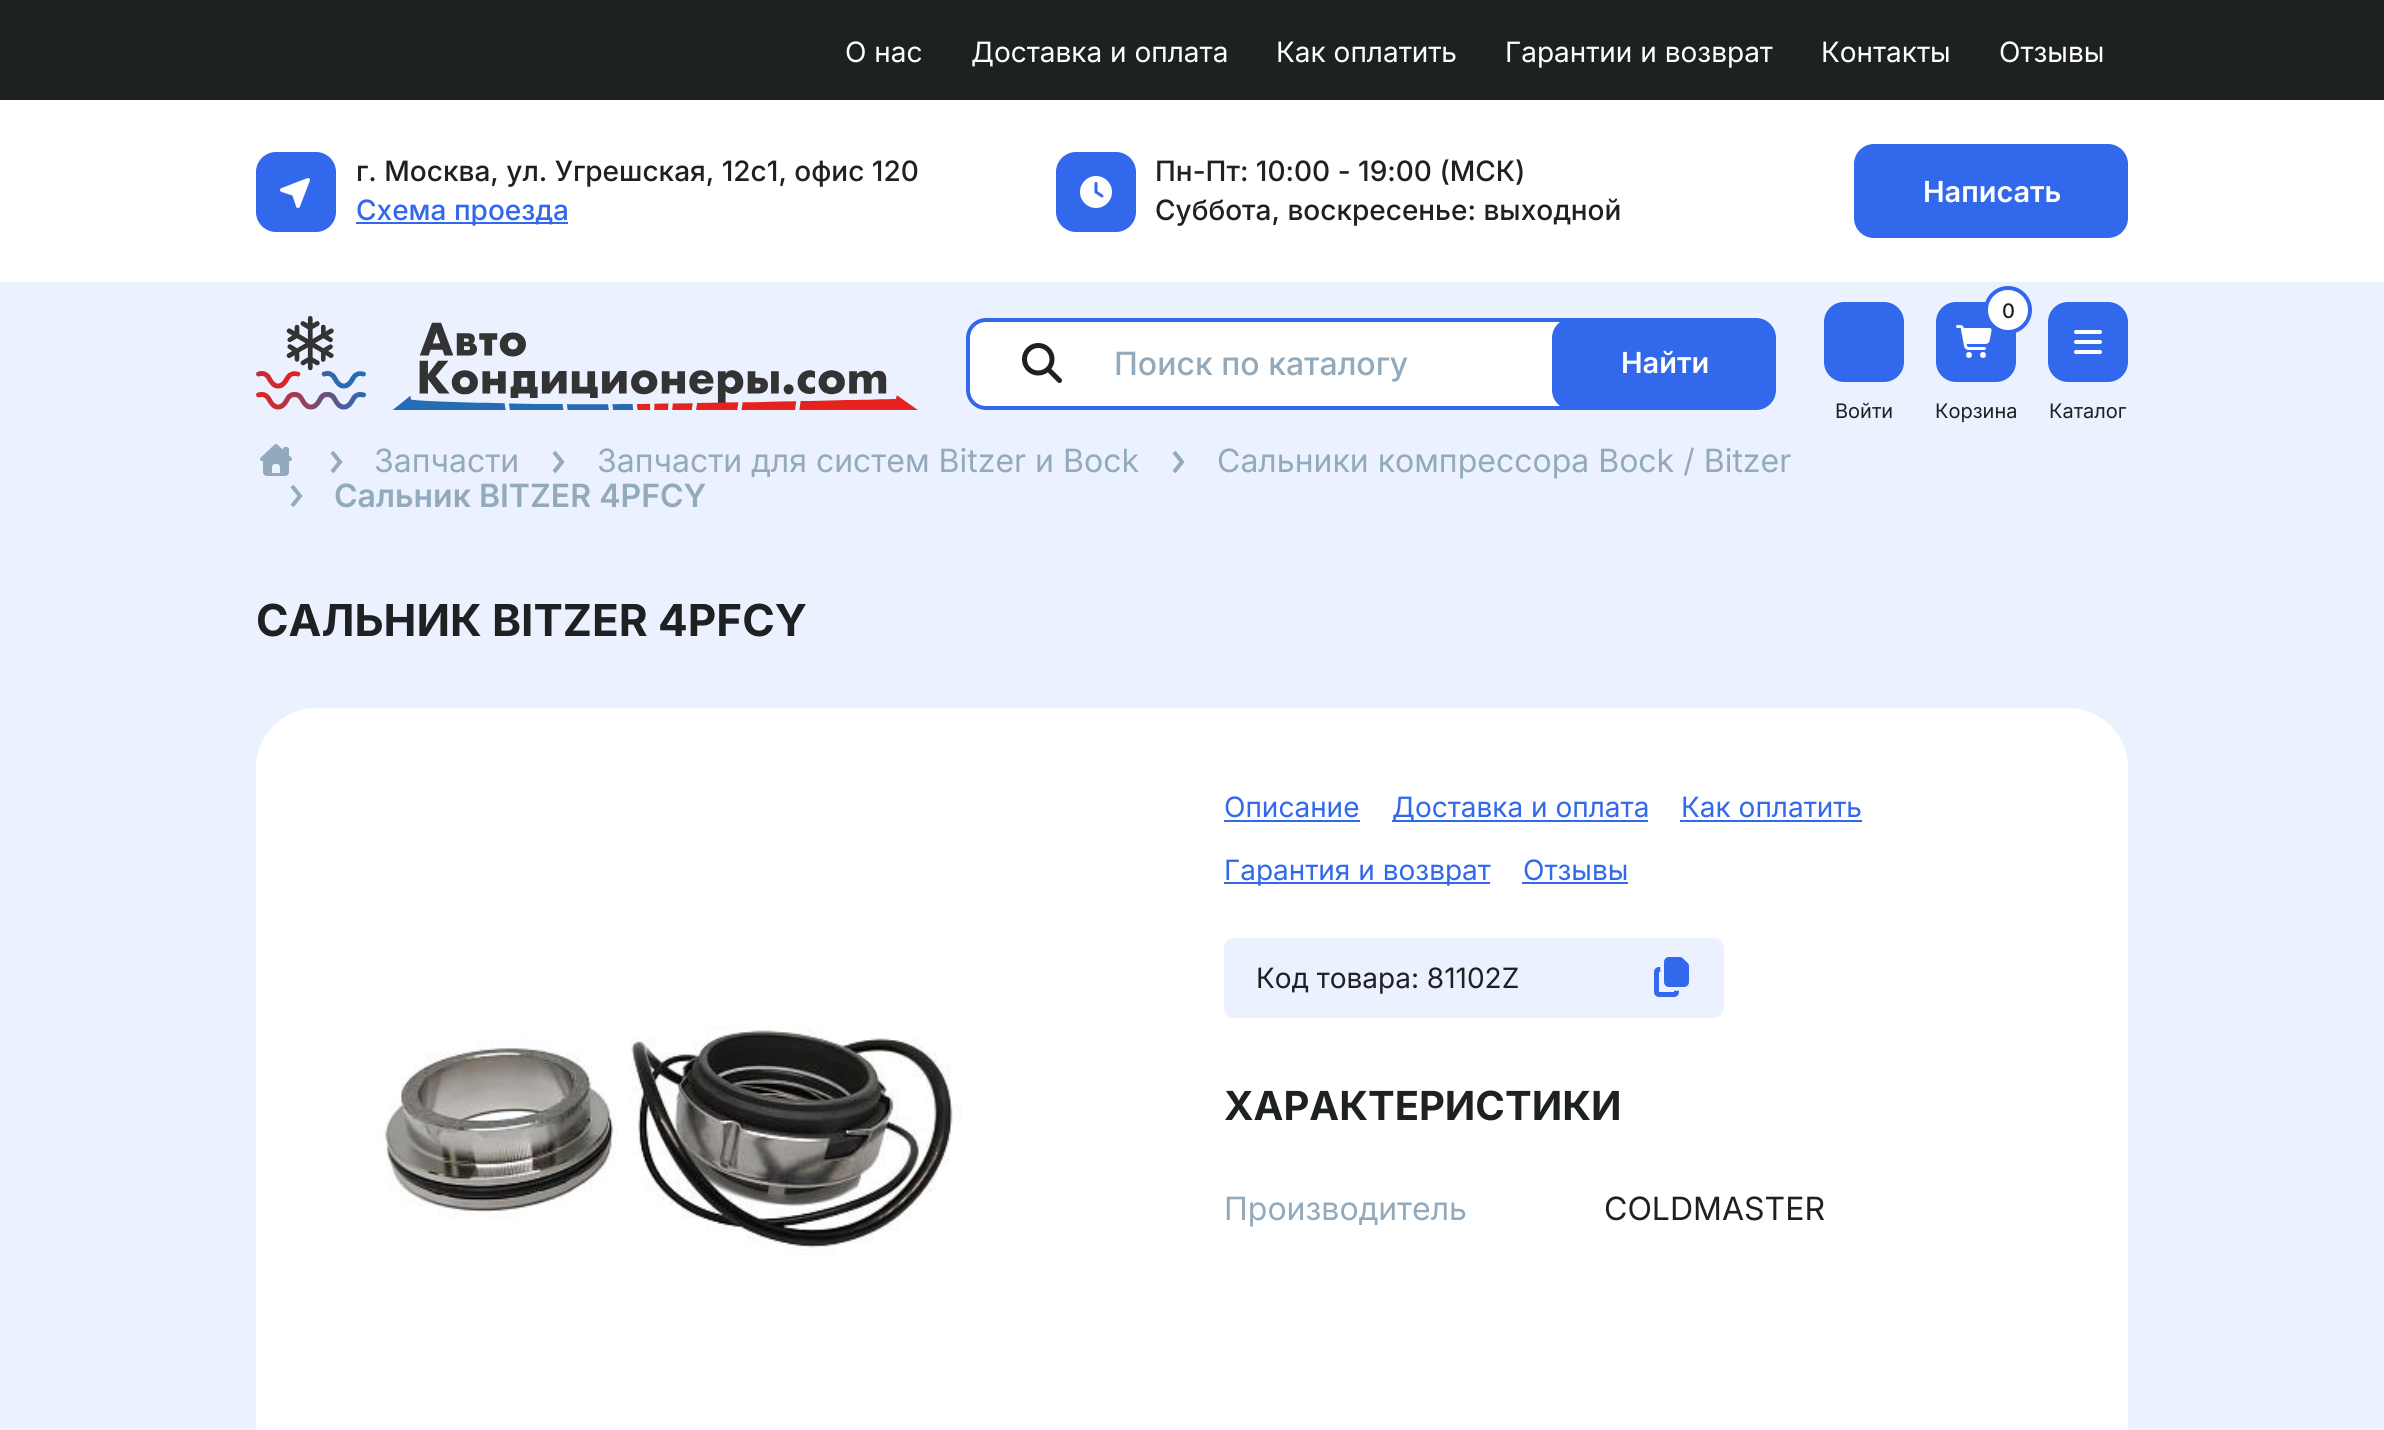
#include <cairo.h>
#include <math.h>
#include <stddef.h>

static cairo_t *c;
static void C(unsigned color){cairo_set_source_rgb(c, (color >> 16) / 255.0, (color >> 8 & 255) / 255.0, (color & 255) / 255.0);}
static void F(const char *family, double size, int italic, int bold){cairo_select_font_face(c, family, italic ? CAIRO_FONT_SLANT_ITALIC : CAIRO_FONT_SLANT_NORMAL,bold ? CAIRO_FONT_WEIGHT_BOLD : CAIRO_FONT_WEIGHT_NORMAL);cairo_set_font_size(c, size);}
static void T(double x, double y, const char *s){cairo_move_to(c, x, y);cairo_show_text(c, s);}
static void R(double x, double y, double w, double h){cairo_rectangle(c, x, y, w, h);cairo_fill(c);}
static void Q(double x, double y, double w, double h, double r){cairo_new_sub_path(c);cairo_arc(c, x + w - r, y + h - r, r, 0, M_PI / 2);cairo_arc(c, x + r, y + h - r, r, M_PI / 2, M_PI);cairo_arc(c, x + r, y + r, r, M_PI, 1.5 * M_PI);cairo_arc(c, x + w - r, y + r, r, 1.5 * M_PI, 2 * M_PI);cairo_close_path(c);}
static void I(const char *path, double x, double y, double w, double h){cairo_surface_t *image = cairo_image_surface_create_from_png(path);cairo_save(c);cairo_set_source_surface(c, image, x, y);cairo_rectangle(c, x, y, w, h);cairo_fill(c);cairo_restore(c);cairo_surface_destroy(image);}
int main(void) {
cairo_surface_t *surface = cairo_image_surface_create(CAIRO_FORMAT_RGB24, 2384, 1430);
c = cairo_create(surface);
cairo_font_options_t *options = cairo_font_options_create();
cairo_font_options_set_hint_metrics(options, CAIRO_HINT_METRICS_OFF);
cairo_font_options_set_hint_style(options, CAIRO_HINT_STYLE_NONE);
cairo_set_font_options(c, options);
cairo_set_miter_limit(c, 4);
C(0xecf1ff);
cairo_paint(c);
C(0x1e2122);
R(0,0,2384,100);
F("Inter",28,0,0);
C(0xffffff);
T(845,62,"О нас");
T(971,62,"Доставка и оплата");
T(1276,62,"Как оплатить");
T(1505,62,"Гарантии и возврат");
T(1821,62,"Контакты");
T(1999,62,"Отзывы");
R(0,100,2384,182);
C(0x3168ec);
Q(256,152,80,80,20);
cairo_fill(c);
I("1.png",280,178,30,30);
F("Inter Medium",28,0,0);
C(0x1e2122);
T(356,181,"г. Москва, ул. Угрешская, 12с1, офис 120");
C(0x3168ec);
R(356,222,212,2);
T(356,220,"Схема проезда");
Q(1056,152,80,80,20);
cairo_fill(c);
I("2.png",1080,176,32,32);
C(0x1e2122);
T(1155,181,"Пн-Пт: 10:00 - 19:00 (МСК)");
T(1155,220,"Суббота, воскресенье: выходной");
C(0x3168ec);
Q(1855,145,272,92,19);
cairo_fill_preserve(c);
cairo_stroke(c);
F("Inter SemiBold",29,0,0);
C(0xffffff);
T(1923,202,"Написать");
I("3.png",256,316,662,94);
cairo_new_path(c);
cairo_move_to(c,986,318);
cairo_line_to(c,1116,318);
cairo_line_to(c,1116,410);
cairo_line_to(c,986,410);
cairo_curve_to(c,975,410,966,401,966,390);
cairo_line_to(c,966,338);
cairo_curve_to(c,966,327,975,318,986,318);
cairo_close_path(c);
cairo_fill(c);
C(0x3168ec);
cairo_set_fill_rule(c,CAIRO_FILL_RULE_EVEN_ODD);
cairo_new_path(c);
cairo_move_to(c,986,318);
cairo_line_to(c,1116,318);
cairo_line_to(c,1116,410);
cairo_line_to(c,986,410);
cairo_curve_to(c,975,410,966,401,966,390);
cairo_line_to(c,966,338);
cairo_curve_to(c,966,327,975,318,986,318);
cairo_close_path(c);
cairo_move_to(c,986,322);
cairo_line_to(c,1116,322);
cairo_line_to(c,1116,406);
cairo_line_to(c,986,406);
cairo_curve_to(c,977,406,970,399,970,390);
cairo_line_to(c,970,338);
cairo_curve_to(c,970,329,977,322,986,322);
cairo_close_path(c);
cairo_fill(c);
I("4.png",1022,343,40,40);
C(0xffffff);
R(1116,322,444,84);
C(0x3168ec);
R(1114,318,458,4);
R(1114,406,458,4);
F("Inter Medium",32,0,0);
C(0x92aabc);
T(1114,375,"Поиск по каталогу");
C(0x3168ec);
Q(1553,319,222,90,19);
cairo_fill_preserve(c);
cairo_stroke(c);
F("Inter SemiBold",29,0,0);
C(0xffffff);
T(1621,373,"Найти");
C(0x3168ec);
Q(1824,302,80,80,20);
cairo_fill(c);
F("Inter",20,0,0);
C(0x1e2122);
T(1835,418,"Войти");
C(0x3168ec);
Q(1936,302,80,80,20);
cairo_fill(c);
I("5.png",1956,325,36,33);
C(0xffffff);
cairo_arc(c,2008,310,22,0,2 * M_PI);
cairo_fill_preserve(c);
C(0x3168ec);
cairo_set_line_width(c,4);
cairo_stroke(c);
F("Inter Medium",20,0,0);
C(0x1e2122);
T(2002,318,"0");
F("Inter",20,0,0);
T(1935,418,"Корзина");
C(0x3168ec);
Q(2048,302,80,80,20);
cairo_fill(c);
I("6.png",2074,330,28,24);
C(0x1e2122);
T(2049,418,"Каталог");
I("7.png",260,444,32,32);
cairo_new_path(c);
cairo_move_to(c,332,452);
cairo_line_to(c,340,462);
cairo_line_to(c,332,472);
C(0x92aabc);
cairo_stroke(c);
F("Inter",32,0,0);
T(374,472,"Запчасти");
cairo_new_path(c);
cairo_move_to(c,554,452);
cairo_line_to(c,562,462);
cairo_line_to(c,554,472);
cairo_stroke(c);
T(597,472,"Запчасти для систем Bitzer и Bock");
cairo_new_path(c);
cairo_move_to(c,1174,452);
cairo_line_to(c,1182,462);
cairo_line_to(c,1174,472);
cairo_stroke(c);
T(1217,472,"Сальники компрессора Bock / Bitzer");
cairo_new_path(c);
cairo_move_to(c,292,486);
cairo_line_to(c,300,496);
cairo_line_to(c,292,506);
cairo_stroke(c);
F("Inter SemiBold",32,0,0);
T(334,507,"Сальник BITZER 4PFCY");
F("Inter",44,0,1);
C(0x1e2122);
T(256,636,"САЛЬНИК BITZER 4PFCY");
C(0xffffff);
Q(256,708,1872,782,60);
cairo_fill(c);
I("8.png",376,1026,586,230);
F("Inter",28,0,0);
C(0x3168ec);
T(1224,817,"Описание");
R(1224,820,136,2);
R(1392,820,256,2);
T(1392,817,"Доставка и оплата");
T(1681,817,"Как оплатить");
R(1680,820,182,2);
R(1224,882,266,2);
T(1224,880,"Гарантия и возврат");
T(1523,880,"Отзывы");
R(1522,882,106,2);
C(0xecf1ff);
Q(1224,938,500,80,10);
cairo_fill(c);
C(0x1e2122);
T(1256,988,"Код товара: 81102Z");
I("9.png",1654,957,35,40);
F("Inter",40,0,1);
T(1224,1120,"ХАРАКТЕРИСТИКИ");
F("Inter",32,0,0);
C(0x92aabc);
T(1224,1220,"Производитель");
C(0x1e2122);
T(1604,1220,"COLDMASTER");
cairo_surface_write_to_png(surface, "o.png");
cairo_font_options_destroy(options);
cairo_destroy(c);
cairo_surface_destroy(surface);
return 0;
}
